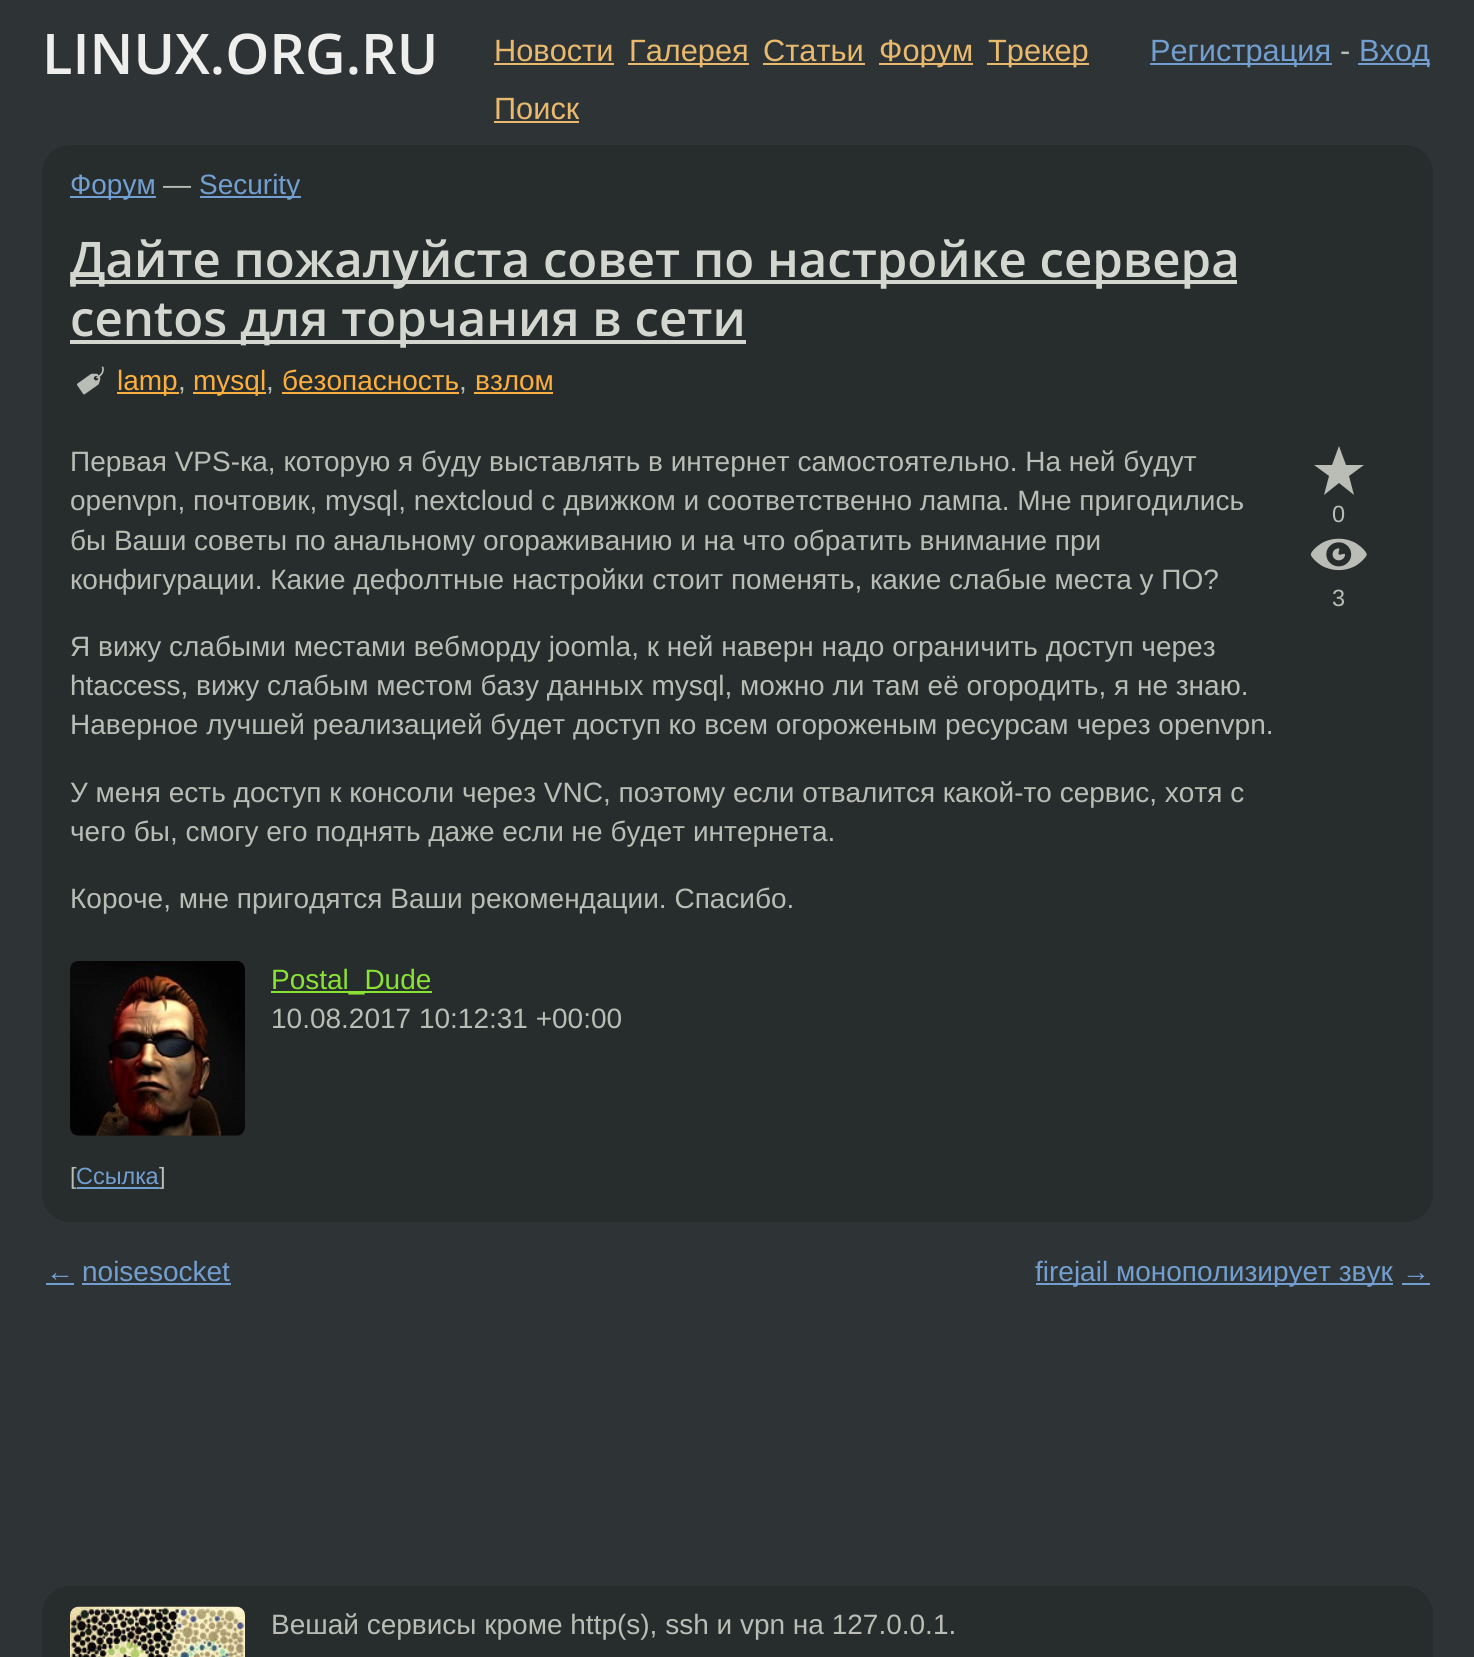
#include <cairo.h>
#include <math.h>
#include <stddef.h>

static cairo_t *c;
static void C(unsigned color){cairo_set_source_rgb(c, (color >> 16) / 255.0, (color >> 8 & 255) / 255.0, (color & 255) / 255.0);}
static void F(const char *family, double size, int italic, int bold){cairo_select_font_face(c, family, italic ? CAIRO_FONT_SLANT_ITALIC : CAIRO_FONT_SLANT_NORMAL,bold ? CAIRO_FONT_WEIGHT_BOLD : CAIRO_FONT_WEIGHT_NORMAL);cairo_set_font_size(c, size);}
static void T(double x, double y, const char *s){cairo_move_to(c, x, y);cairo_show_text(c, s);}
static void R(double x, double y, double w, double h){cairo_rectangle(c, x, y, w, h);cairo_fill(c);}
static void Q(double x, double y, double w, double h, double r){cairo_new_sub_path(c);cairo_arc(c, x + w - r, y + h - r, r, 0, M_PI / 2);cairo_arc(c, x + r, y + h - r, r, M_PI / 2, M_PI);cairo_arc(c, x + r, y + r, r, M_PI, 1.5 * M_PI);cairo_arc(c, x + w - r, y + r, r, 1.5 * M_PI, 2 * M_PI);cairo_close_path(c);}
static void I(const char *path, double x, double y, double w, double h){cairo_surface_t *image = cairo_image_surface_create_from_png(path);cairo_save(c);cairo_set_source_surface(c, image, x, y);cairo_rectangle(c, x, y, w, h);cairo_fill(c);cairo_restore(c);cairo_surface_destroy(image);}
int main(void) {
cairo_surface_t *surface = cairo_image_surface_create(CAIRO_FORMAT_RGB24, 1474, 1657);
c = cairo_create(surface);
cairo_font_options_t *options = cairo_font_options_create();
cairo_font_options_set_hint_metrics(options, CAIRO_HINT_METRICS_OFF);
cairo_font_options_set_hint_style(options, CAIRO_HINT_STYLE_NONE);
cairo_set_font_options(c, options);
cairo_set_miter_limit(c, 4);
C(0x2e3436);
cairo_paint(c);
F("Open Sans SemiBold",56,0,0);
C(0xeeeeec);
T(42,74,"LINUX.ORG.RU");
F("Liberation Sans",30.75,0,0);
C(0xe9b96e);
T(494,61,"Новости");
R(494,63,120,2);
R(628,63,121,2);
T(629,61,"Галерея");
T(763,61,"Статьи");
R(763,63,102,2);
R(879,63,94,2);
T(879,61,"Форум");
R(987,63,102,2);
T(988,61,"Трекер");
T(494,119,"Поиск");
R(494,121,85,2);
C(0x729fcf);
R(1150,63,182,2);
T(1150,61,"Регистрация");
C(0xbabdb6);
T(1340,61,"-");
C(0x729fcf);
R(1358,63,72,2);
T(1359,61,"Вход");
C(0x272c2d);
Q(42,145,1391,1077,28);
cairo_fill(c);
C(0x729fcf);
R(70,196,86,2);
F("Liberation Sans",28,0,0);
T(70,194,"Форум");
C(0xbabdb6);
T(163,194,"—");
C(0x729fcf);
R(200,196,101,2);
T(199,194,"Security");
C(0xd3d7cf);
R(70,280,1167,4);
F("Open Sans SemiBold",49.1,0,0);
T(70,277,"Дайте пожалуйста совет по настройке сервера");
R(70,340,676,4);
T(70,336,"centos для торчания в сети");
I("1.png",77,366,27,29);
C(0xfcaf3e);
R(117,392,62,2);
F("Liberation Sans",28,0,0);
T(117,390,"lamp");
C(0xbabdb6);
T(178,390,",");
C(0xfcaf3e);
R(193,392,73,2);
T(193,390,"mysql");
C(0xbabdb6);
T(266,390,",");
C(0xfcaf3e);
T(282,390,"безопасность");
R(282,392,177,2);
C(0xbabdb6);
T(459,390,",");
C(0xfcaf3e);
T(475,390,"взлом");
R(474,392,79,2);
C(0xbabdb6);
T(70,471,"Первая VPS-ка, которую я буду выставлять в интернет самостоятельно. На ней будут");
T(70,510,"openvpn, почтовик, mysql, nextcloud с движком и соответственно лампа. Мне пригодились");
T(70,550,"бы Ваши советы по анальному огораживанию и на что обратить внимание при");
T(70,589,"конфигурации. Какие дефолтные настройки стоит поменять, какие слабые места у ПО?");
T(70,656,"Я вижу слабыми местами вебморду joomla, к ней наверн надо ограничить доступ через");
T(70,695,"htaccess, вижу слабым местом базу данных mysql, можно ли там её огородить, я не знаю.");
T(70,734,"Наверное лучшей реализацией будет доступ ко всем огороженым ресурсам через openvpn.");
T(70,802,"У меня есть доступ к консоли через VNC, поэтому если отвалится какой-то сервис, хотя с");
T(70,841,"чего бы, смогу его поднять даже если не будет интернета.");
T(70,908,"Короче, мне пригодятся Ваши рекомендации. Спасибо.");
cairo_new_path(c);
cairo_move_to(c,1339,446);
cairo_line_to(c,1346,465);
cairo_line_to(c,1364,465);
cairo_line_to(c,1349,476);
cairo_line_to(c,1354,495);
cairo_line_to(c,1339,483);
cairo_line_to(c,1324,495);
cairo_line_to(c,1329,476);
cairo_line_to(c,1314,465);
cairo_line_to(c,1332,465);
cairo_close_path(c);
cairo_fill(c);
F("Liberation Sans",23.5,0,0);
T(1332,522,"0");
I("2.png",1310,538,57,33);
T(1332,606,"3");
I("3.png",70,961,175,175);
C(0x8ae234);
R(271,991,161,2);
F("Liberation Sans",28,0,0);
T(271,989,"Postal_Dude");
C(0xbabdb6);
T(271,1028,"10.08.2017 10:12:31 +00:00");
F("Liberation Sans",23.5,0,0);
T(70,1184,"[");
C(0x729fcf);
R(77,1187,82,2);
T(76,1184,"Ссылка");
C(0xbabdb6);
T(159,1184,"]");
F("Liberation Sans",28,0,0);
C(0x729fcf);
T(46,1281,"←");
R(46,1283,28,2);
T(82,1281,"noisesocket");
R(82,1283,149,2);
R(1036,1283,357,2);
T(1035,1281,"firejail монополизирует звук");
T(1402,1281,"→");
R(1402,1283,28,2);
C(0x272c2d);
Q(42,1586,1391,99,28);
cairo_fill(c);
I("4.png",70,1606,175,51);
C(0xbabdb6);
T(271,1634,"Вешай сервисы кроме http(s), ssh и vpn на 127.0.0.1.");
cairo_surface_write_to_png(surface, "o.png");
cairo_font_options_destroy(options);
cairo_destroy(c);
cairo_surface_destroy(surface);
return 0;
}
